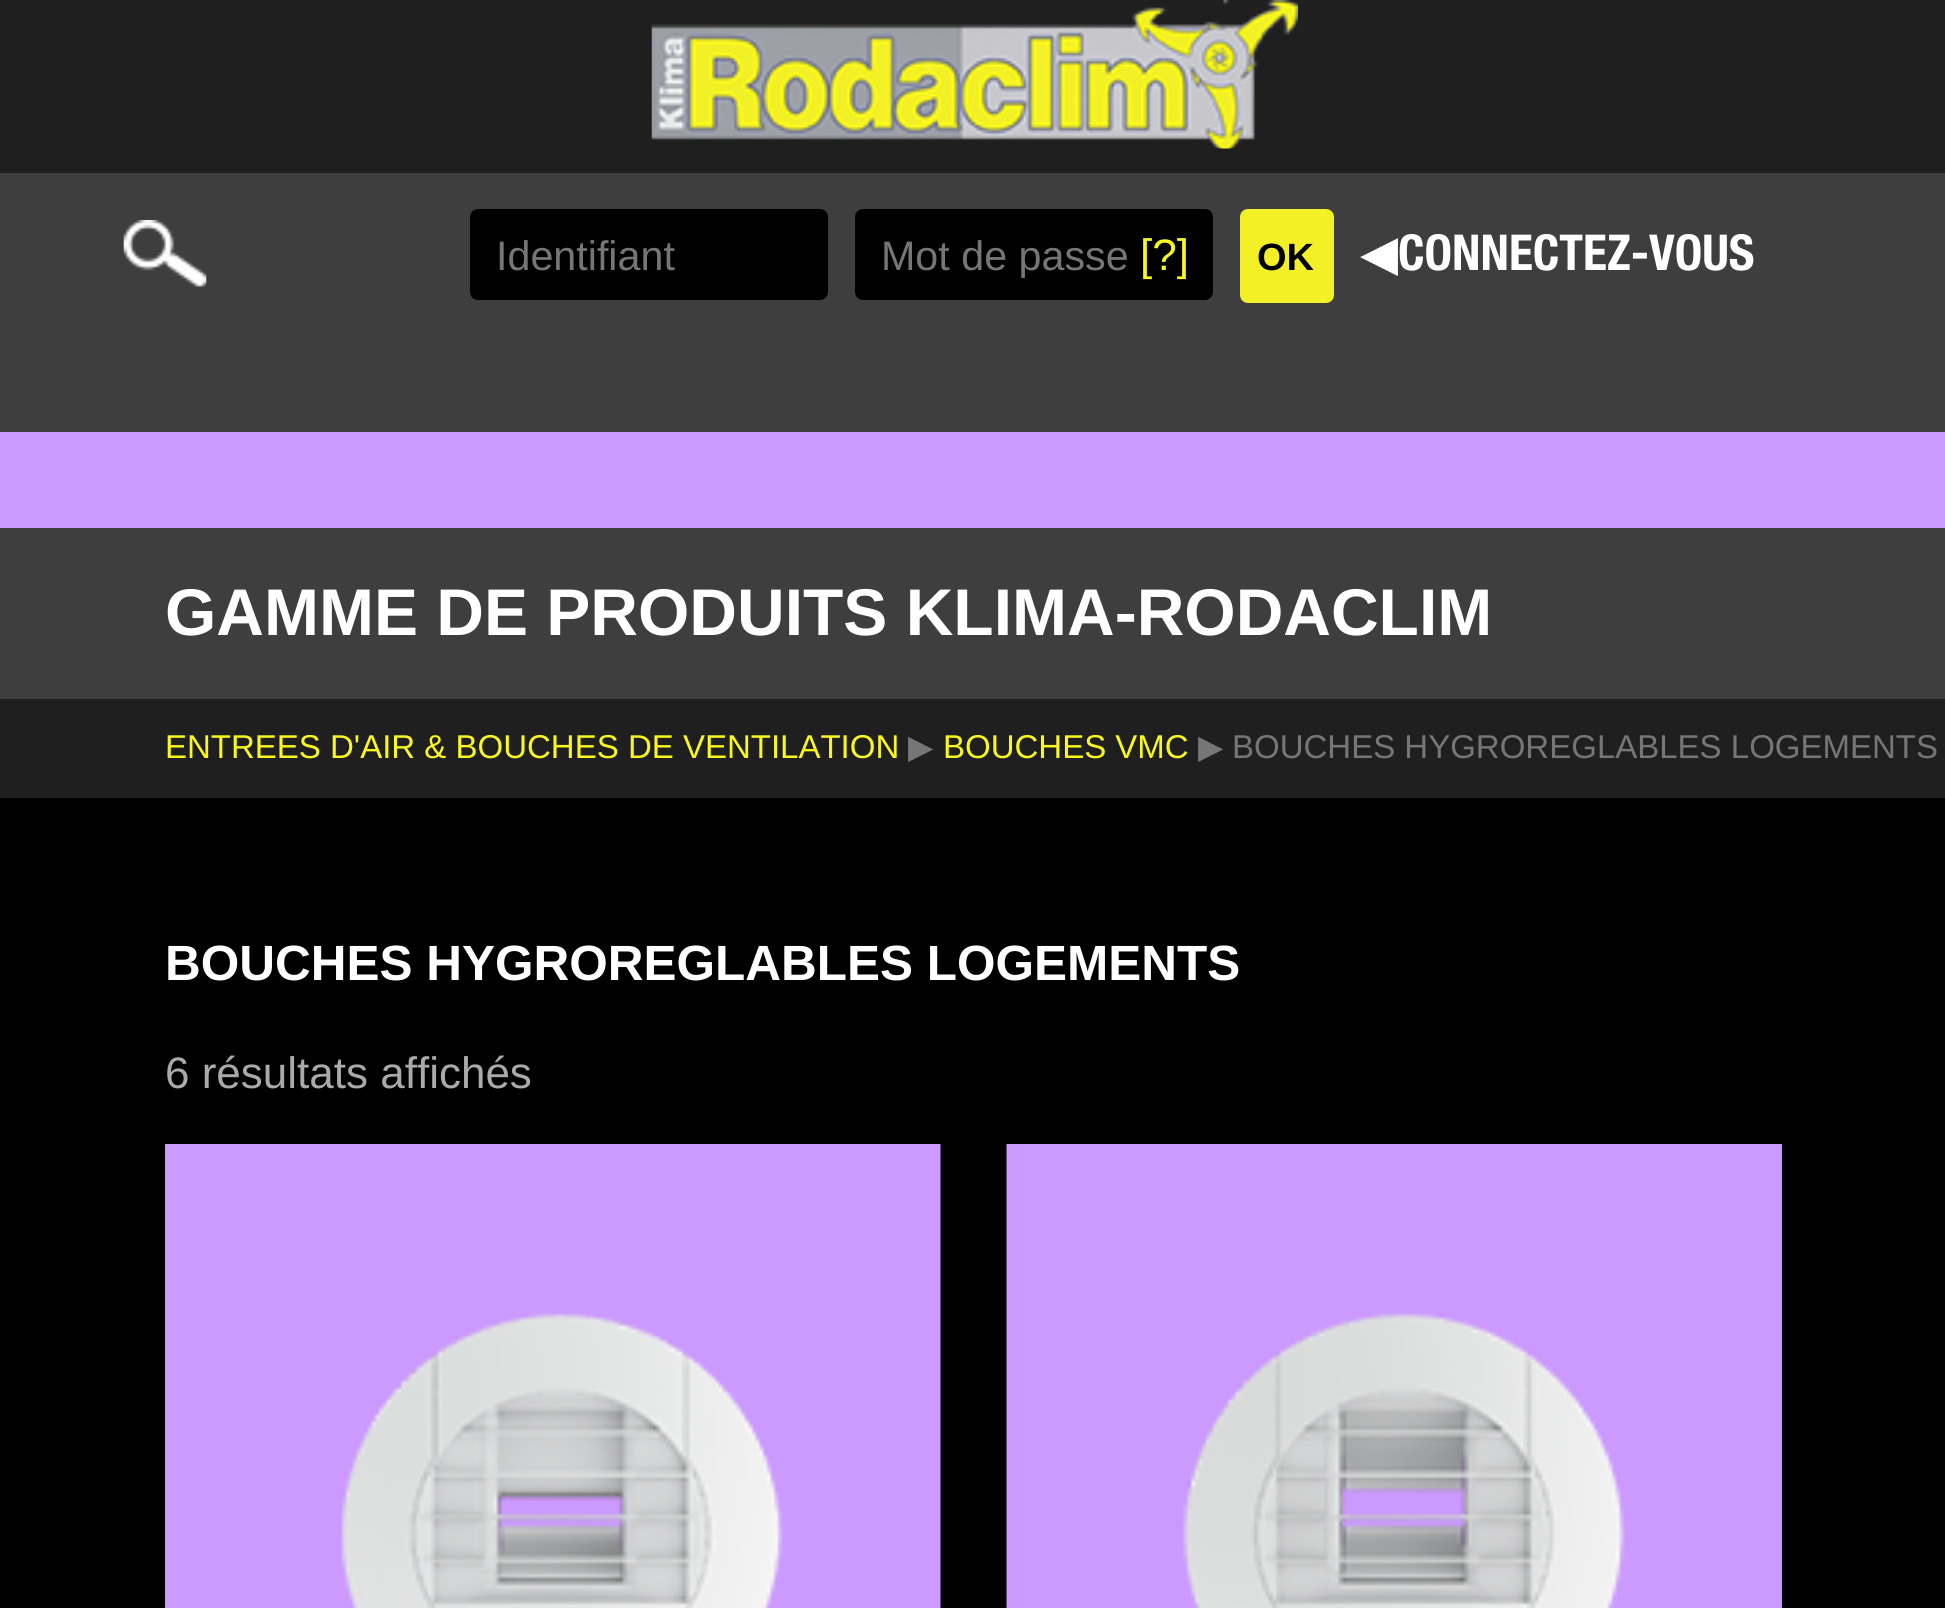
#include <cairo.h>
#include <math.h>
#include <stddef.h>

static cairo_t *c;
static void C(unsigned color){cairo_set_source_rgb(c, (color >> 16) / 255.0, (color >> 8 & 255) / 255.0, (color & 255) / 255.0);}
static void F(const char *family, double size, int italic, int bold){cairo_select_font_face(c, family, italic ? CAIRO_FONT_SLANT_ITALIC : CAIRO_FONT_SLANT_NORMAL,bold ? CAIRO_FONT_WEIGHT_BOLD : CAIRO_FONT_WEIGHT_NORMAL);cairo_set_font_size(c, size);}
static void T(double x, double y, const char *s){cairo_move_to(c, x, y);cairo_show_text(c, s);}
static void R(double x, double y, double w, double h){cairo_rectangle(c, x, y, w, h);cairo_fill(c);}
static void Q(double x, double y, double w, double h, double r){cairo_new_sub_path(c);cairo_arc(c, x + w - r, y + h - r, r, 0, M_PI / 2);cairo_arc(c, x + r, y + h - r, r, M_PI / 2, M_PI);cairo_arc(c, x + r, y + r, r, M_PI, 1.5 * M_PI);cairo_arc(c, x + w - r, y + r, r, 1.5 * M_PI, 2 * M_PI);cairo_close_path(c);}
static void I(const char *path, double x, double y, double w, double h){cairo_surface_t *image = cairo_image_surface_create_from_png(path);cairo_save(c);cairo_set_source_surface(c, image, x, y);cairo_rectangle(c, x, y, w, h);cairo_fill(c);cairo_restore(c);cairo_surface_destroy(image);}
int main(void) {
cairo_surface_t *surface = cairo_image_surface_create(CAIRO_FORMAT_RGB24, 1945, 1608);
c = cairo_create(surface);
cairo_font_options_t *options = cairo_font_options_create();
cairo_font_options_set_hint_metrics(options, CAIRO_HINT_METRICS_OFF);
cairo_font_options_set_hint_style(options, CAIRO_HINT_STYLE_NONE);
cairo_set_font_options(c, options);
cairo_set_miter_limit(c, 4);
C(0x000000);
cairo_paint(c);
C(0x3e3e3e);
R(0,173,1945,259);
I("1.png",123,220,84,67);
C(0x1f1f1f);
R(0,0,1945,173);
I("2.png",651,0,647,149);
C(0x000000);
Q(470,209,358,91,8);
cairo_fill(c);
F("Liberation Sans",41.25,0,0);
C(0x767676);
T(496,270,"Identifiant");
C(0x000000);
Q(855,209,358,91,8);
cairo_fill(c);
cairo_save(c);
cairo_rectangle(c,883,231,302,47);
cairo_clip(c);
C(0x767676);
T(881,270,"Mot de passe");
cairo_restore(c);
F("Liberation Sans",44,0,0);
C(0xfaf71f);
T(1140,270,"[?]");
C(0xf3f126);
Q(1240,209,94,94,8);
cairo_fill(c);
F("Liberation Sans",38,0,1);
C(0x000000);
T(1257,270,"OK");
F("DejaVu Sans",49.5,0,0);
C(0xffffff);
T(1360,270,"◀");
F("Helvetica Neue",49.5,0,1);
T(1398,270,"CONNECTEZ-VOUS");
C(0xcc99ff);
R(0,432,1945,96);
C(0x3e3e3e);
R(0,528,1945,171);
F("Liberation Sans",66,0,1);
C(0xffffff);
T(165,635,"GAMME DE PRODUITS KLIMA-RODACLIM");
C(0x1f1f1f);
R(0,699,1945,99);
F("Liberation Sans",33,0,0);
C(0xfaf71f);
T(165,758,"ENTREES D'AIR & BOUCHES DE VENTILATION");
F("DejaVu Sans",33,0,0);
C(0x767676);
T(908,758,"▶");
F("Liberation Sans",33,0,0);
C(0xfaf71f);
T(943,758,"BOUCHES VMC");
F("DejaVu Sans",33,0,0);
C(0x767676);
T(1198,758,"▶");
F("Liberation Sans",33,0,0);
T(1232,758,"BOUCHES HYGROREGLABLES LOGEMENTS");
F("Liberation Sans",49.5,0,1);
C(0xffffff);
T(165,980,"BOUCHES HYGROREGLABLES LOGEMENTS");
F("Liberation Sans",44,0,0);
C(0xaaaaaa);
T(165,1088,"6 résultats affichés");
I("3.png",165,1144,776,464);
I("4.png",1006,1144,776,464);
cairo_surface_write_to_png(surface, "o.png");
cairo_font_options_destroy(options);
cairo_destroy(c);
cairo_surface_destroy(surface);
return 0;
}
